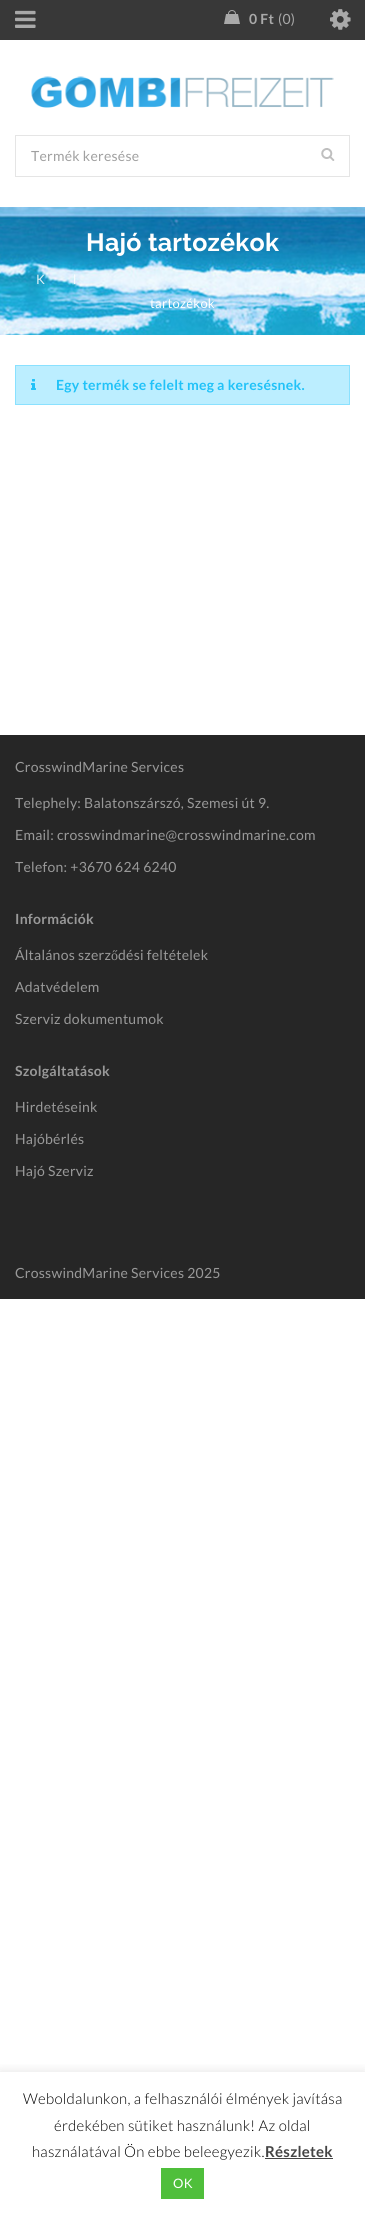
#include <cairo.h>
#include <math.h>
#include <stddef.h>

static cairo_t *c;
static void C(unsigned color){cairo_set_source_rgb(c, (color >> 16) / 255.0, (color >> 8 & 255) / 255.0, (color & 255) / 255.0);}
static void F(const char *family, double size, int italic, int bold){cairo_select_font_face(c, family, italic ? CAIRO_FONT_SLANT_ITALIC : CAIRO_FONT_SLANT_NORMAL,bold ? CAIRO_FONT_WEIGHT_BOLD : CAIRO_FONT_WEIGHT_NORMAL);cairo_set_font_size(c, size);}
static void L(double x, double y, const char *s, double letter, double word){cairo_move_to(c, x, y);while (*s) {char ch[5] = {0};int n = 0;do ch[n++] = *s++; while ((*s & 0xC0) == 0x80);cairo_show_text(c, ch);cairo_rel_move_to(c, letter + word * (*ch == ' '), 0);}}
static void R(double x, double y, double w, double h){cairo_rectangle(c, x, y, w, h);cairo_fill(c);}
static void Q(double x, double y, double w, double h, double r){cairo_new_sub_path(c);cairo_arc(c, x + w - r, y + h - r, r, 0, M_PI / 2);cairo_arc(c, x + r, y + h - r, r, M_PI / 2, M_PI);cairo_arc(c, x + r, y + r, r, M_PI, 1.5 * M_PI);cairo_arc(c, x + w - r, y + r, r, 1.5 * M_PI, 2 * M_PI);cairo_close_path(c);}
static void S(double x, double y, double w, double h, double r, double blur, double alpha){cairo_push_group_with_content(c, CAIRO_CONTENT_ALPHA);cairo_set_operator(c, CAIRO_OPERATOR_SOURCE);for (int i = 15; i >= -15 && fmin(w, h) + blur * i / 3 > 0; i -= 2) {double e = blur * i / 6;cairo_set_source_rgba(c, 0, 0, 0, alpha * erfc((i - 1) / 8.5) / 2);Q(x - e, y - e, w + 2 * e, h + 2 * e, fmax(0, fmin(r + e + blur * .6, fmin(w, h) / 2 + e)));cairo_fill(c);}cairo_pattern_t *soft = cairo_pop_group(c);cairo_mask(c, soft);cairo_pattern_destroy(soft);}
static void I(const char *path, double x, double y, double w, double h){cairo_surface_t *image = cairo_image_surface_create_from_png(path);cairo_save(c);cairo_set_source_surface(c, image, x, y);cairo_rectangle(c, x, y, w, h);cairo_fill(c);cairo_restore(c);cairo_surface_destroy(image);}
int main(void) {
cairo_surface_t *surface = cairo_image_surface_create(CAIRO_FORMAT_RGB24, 365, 2216);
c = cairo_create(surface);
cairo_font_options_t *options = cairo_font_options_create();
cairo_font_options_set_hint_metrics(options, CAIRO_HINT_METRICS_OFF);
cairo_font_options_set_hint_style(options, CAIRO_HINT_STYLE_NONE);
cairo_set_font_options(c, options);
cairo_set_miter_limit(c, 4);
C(0xffffff);
cairo_paint(c);
C(0x383838);
R(0,0,365,40);
I("1.png",15,10,21,18);
C(0xa9a9a9);
cairo_new_path(c);
cairo_move_to(c,240,24);
cairo_line_to(c,224,24);
cairo_line_to(c,226,14);
cairo_line_to(c,238,14);
cairo_close_path(c);
cairo_fill(c);
cairo_arc(c,232,14,3.5,0,2 * M_PI);
cairo_set_line_width(c,1);
cairo_stroke(c);
F("Lato",14,0,1);
L(249,24,"0 Ft",.25,0);
F("Lato",14,0,0);
L(278,24,"(0)",.25,0);
I("2.png",330,9,21,21);
I("3.png",31,76,303,32);
cairo_rectangle(c,15.5,135.5,334,41);
C(0xe5e5e5);
cairo_stroke(c);
C(0xa0a0a0);
L(31,161,"Termék keresése",.25,0);
I("4.png",321,148,14,13);
I("5.png",0,207,365,128);
F("Raleway",25,0,1);
C(0xffffff);
L(86,251,"Hajó tartozékok",.25,0);
F("Lato",13,0,0);
C(0xdff2f8);
L(36,284,"K",.25,0);
C(0xf9fcfe);
L(73,284,"l",.25,0);
C(0xffffff);
L(150,308,"tartozékok",.25,0);
C(0xbceeff);
cairo_rectangle(c,15.5,365.5,334,39);
cairo_fill_preserve(c);
C(0x8ae1ff);
cairo_stroke(c);
I("6.png",31,379,5,11);
F("Lato",14,0,1);
C(0x21c2f8);
L(56,390,"Egy termék se felelt meg a keresésnek.",.25,0);
C(0x262626);
R(0,735,365,564);
F("Lato",14,0,0);
C(0x999999);
L(15,772,"CrosswindMarine Services",.25,0);
L(15,808,"Telephely: Balatonszárszó, Szemesi út 9.",.25,0);
L(15,840,"Email: crosswindmarine@crosswindmarine.com",.25,0);
L(15,872,"Telefon: +3670 624 6240",.25,0);
F("Lato",14,0,1);
L(15,924,"Információk",.25,0);
F("Lato",14,0,0);
L(15,960,"Általános szerz",.25,0);
F("Liberation Serif",14,0,0);
L(111,960,"ő",.25,0);
F("Lato",14,0,0);
L(118,960,"dési feltételek",.25,0);
L(15,992,"Adatvédelem",.25,0);
L(15,1024,"Szerviz dokumentumok",.25,0);
F("Lato",14,0,1);
L(15,1076,"Szolgáltatások",.25,0);
F("Lato",14,0,0);
L(15,1112,"Hirdetéseink",.25,0);
L(15,1144,"Hajóbérlés",.25,0);
L(15,1176,"Hajó Szerviz",.25,0);
L(15,1278,"CrosswindMarine Services 2025",.25,0);
cairo_save(c);
cairo_rectangle(c,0,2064,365,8);
cairo_clip(c);
C(0xacabab);
S(0,2071,365,144,0,5,.3);
cairo_restore(c);
F("Lato Light",15,0,0);
C(0x000000);
L(23,2104,"Weboldalunkon, a felhasználói élmények javítása",.25,0);
L(54,2131,"érdekében sütiket használunk! Az oldal",.25,0);
L(32,2157,"használatával Ön ebbe beleegyezik.",.25,0);
F("Lato",15,0,1);
C(0x444444);
L(265,2157,"Részletek",.25,0);
R(265,2158,68,1);
C(0x4fbf3b);
R(161,2168,43,31);
F("Lato",13,0,0);
C(0xffffff);
L(173,2188,"OK",.25,0);
cairo_surface_write_to_png(surface, "o.png");
cairo_font_options_destroy(options);
cairo_destroy(c);
cairo_surface_destroy(surface);
return 0;
}
